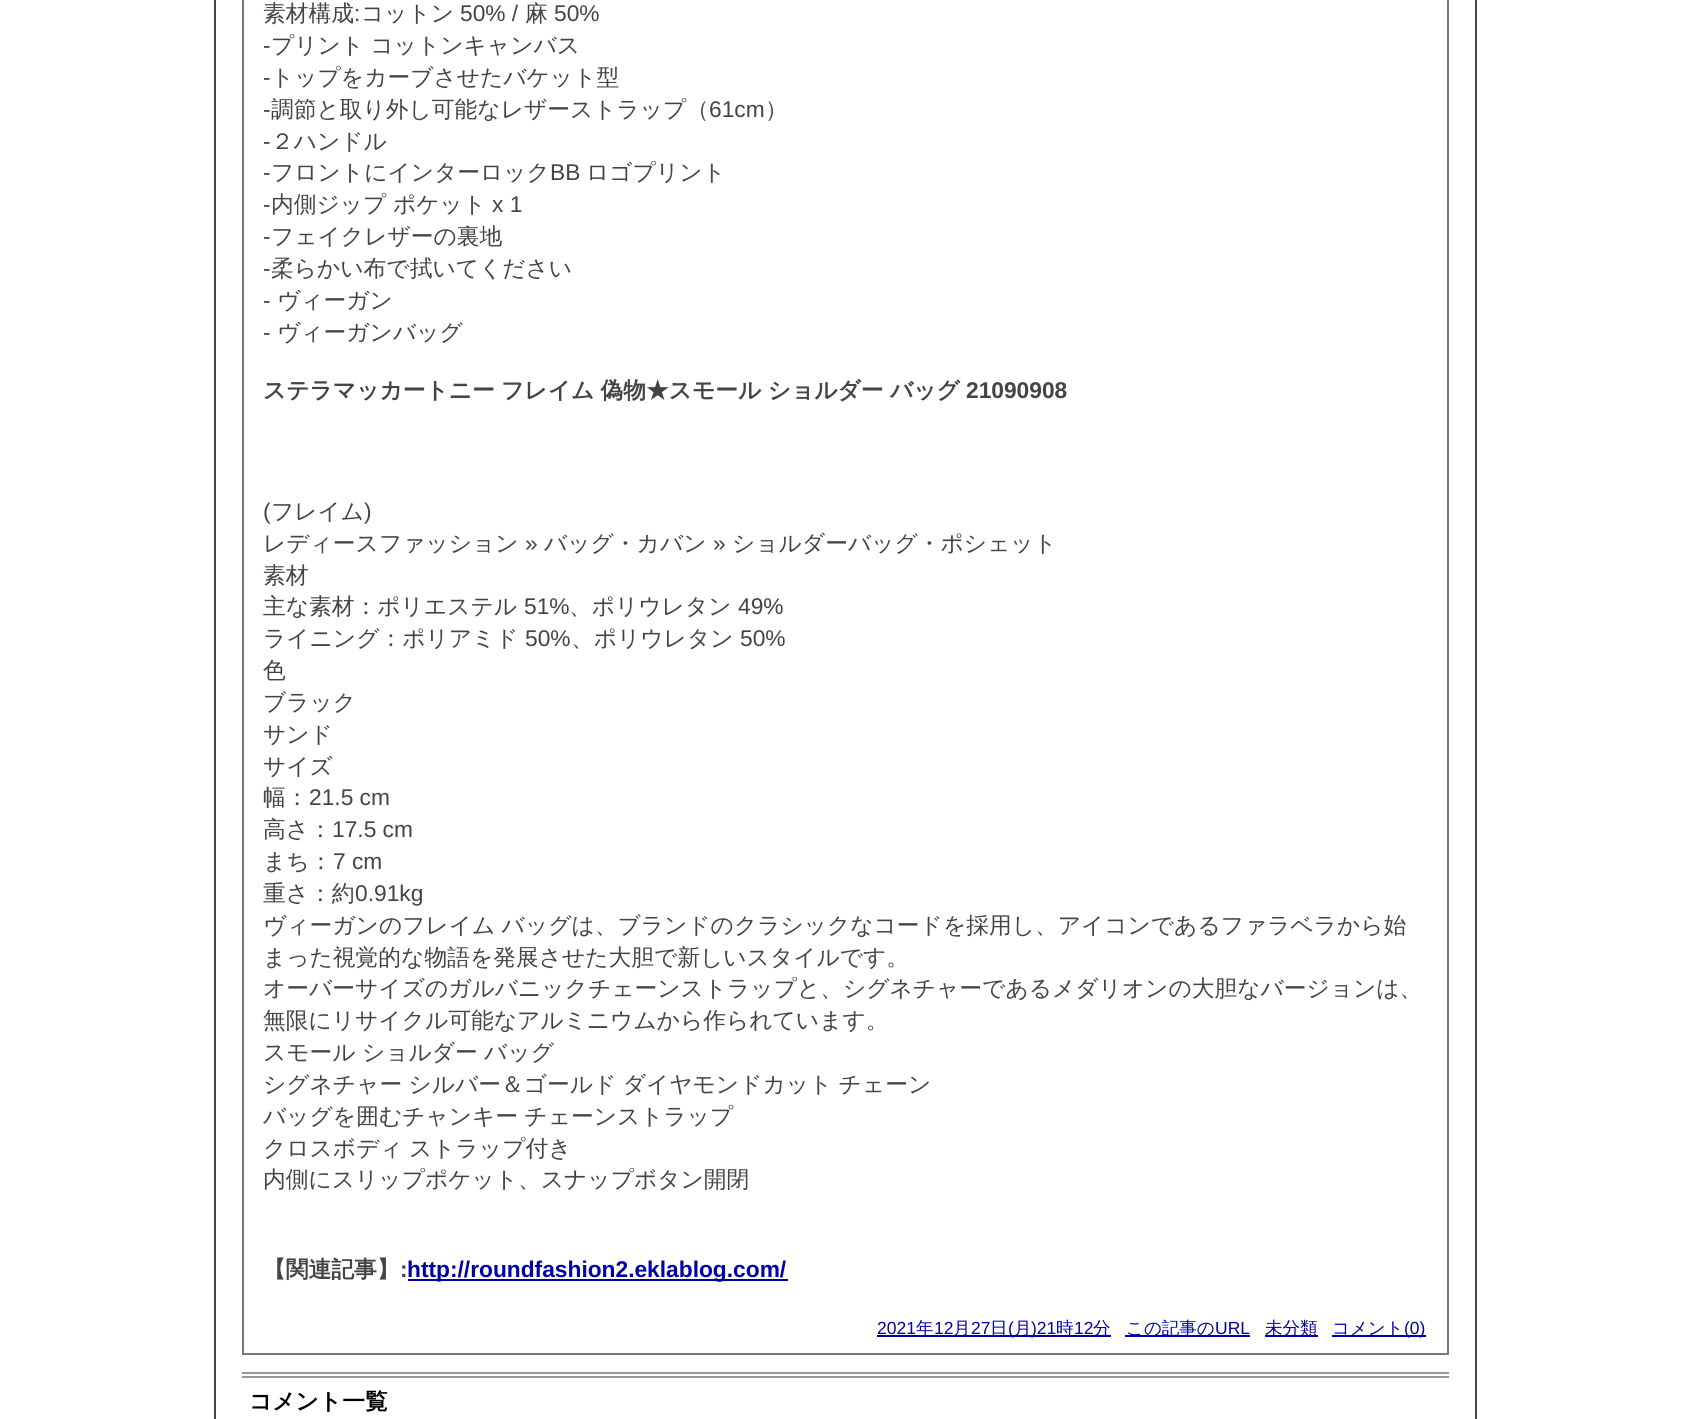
#include <cairo.h>
#include <math.h>
#include <stddef.h>

static cairo_t *c;
static void C(unsigned color){cairo_set_source_rgb(c, (color >> 16) / 255.0, (color >> 8 & 255) / 255.0, (color & 255) / 255.0);}
static void F(const char *family, double size, int italic, int bold){cairo_select_font_face(c, family, italic ? CAIRO_FONT_SLANT_ITALIC : CAIRO_FONT_SLANT_NORMAL,bold ? CAIRO_FONT_WEIGHT_BOLD : CAIRO_FONT_WEIGHT_NORMAL);cairo_set_font_size(c, size);}
static void T(double x, double y, const char *s){cairo_move_to(c, x, y);cairo_show_text(c, s);}
static void L(double x, double y, const char *s, double letter, double word){cairo_move_to(c, x, y);while (*s) {char ch[5] = {0};int n = 0;do ch[n++] = *s++; while ((*s & 0xC0) == 0x80);cairo_show_text(c, ch);cairo_rel_move_to(c, letter + word * (*ch == ' '), 0);}}
static void R(double x, double y, double w, double h){cairo_rectangle(c, x, y, w, h);cairo_fill(c);}
int main(void) {
cairo_surface_t *surface = cairo_image_surface_create(CAIRO_FORMAT_RGB24, 1688, 1419);
c = cairo_create(surface);
cairo_font_options_t *options = cairo_font_options_create();
cairo_font_options_set_hint_metrics(options, CAIRO_HINT_METRICS_OFF);
cairo_font_options_set_hint_style(options, CAIRO_HINT_STYLE_NONE);
cairo_set_font_options(c, options);
cairo_set_miter_limit(c, 4);
C(0xffffff);
cairo_paint(c);
C(0x444444);
R(1475,0,2,1419);
R(214,0,2,1419);
cairo_rectangle(c,243,-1,1205,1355);
C(0x777777);
cairo_stroke(c);
F("WenQuanYi Zen Hei Medium",22.75,0,0);
C(0x444444);
T(263,21,"素材構成");
F("Liberation Sans",22.75,0,0);
T(354,21,":");
F("WenQuanYi Zen Hei Medium",22.75,0,0);
T(361,21,"コットン");
F("Liberation Sans",22.75,0,0);
T(460,21,"50% /");
F("WenQuanYi Zen Hei Medium",22.75,0,0);
T(525,21,"麻");
F("Liberation Sans",22.75,0,0);
T(554,21,"50%");
T(263,53,"-");
F("WenQuanYi Zen Hei Medium",22.75,0,0);
L(271,53,"プリント コットンキャンバス",0,-.5);
F("Liberation Sans",22.75,0,0);
T(263,85,"-");
F("WenQuanYi Zen Hei Medium",22.75,0,0);
T(271,85,"トップをカーブさせたバケット型");
F("Liberation Sans",22.75,0,0);
T(263,117,"-");
F("WenQuanYi Zen Hei Medium",22.75,0,0);
T(271,117,"調節と取り外し可能なレザーストラップ（");
F("Liberation Sans",22.75,0,0);
T(709,117,"61cm");
F("WenQuanYi Zen Hei Medium",22.75,0,0);
T(765,117,"）");
F("Liberation Sans",22.75,0,0);
T(263,149,"-");
F("WenQuanYi Zen Hei Medium",22.75,0,0);
T(271,149,"２ハンドル");
F("Liberation Sans",22.75,0,0);
T(263,180,"-");
F("WenQuanYi Zen Hei Medium",22.75,0,0);
T(271,180,"フロントにインターロック");
F("Liberation Sans",22.75,0,0);
T(550,180,"BB");
F("WenQuanYi Zen Hei Medium",22.75,0,0);
T(586,180,"ロゴプリント");
F("Liberation Sans",22.75,0,0);
T(263,212,"-");
F("WenQuanYi Zen Hei Medium",22.75,0,0);
T(271,212,"内側ジップ");
T(393,212,"ポケット");
F("Liberation Sans",22.75,0,0);
T(492,212,"x 1");
T(263,244,"-");
F("WenQuanYi Zen Hei Medium",22.75,0,0);
T(271,244,"フェイクレザーの裏地");
F("Liberation Sans",22.75,0,0);
T(263,276,"-");
F("WenQuanYi Zen Hei Medium",22.75,0,0);
T(271,276,"柔らかい布で拭いてください");
F("Liberation Sans",22.75,0,0);
T(263,308,"-");
F("WenQuanYi Zen Hei Medium",22.75,0,0);
T(277,308,"ヴィーガン");
F("Liberation Sans",22.75,0,0);
T(263,340,"-");
F("WenQuanYi Zen Hei Medium",22.75,0,0);
T(277,340,"ヴィーガンバッグ");
F("WenQuanYi Zen Hei",22.75,0,1);
L(263,398,"ステラマッカートニー フレイム 偽物★スモール ショルダー バッグ",0,-.5);
F("Liberation Sans",22.75,0,1);
T(966,398,"21090908");
F("Liberation Sans",22.75,0,0);
T(263,519,"(");
F("WenQuanYi Zen Hei Medium",22.75,0,0);
T(271,519,"フレイム");
F("Liberation Sans",22.75,0,0);
T(364,519,")");
F("WenQuanYi Zen Hei Medium",22.75,0,0);
T(263,551,"レディースファッション");
F("Liberation Sans",22.75,0,0);
T(525,551,"»");
F("WenQuanYi Zen Hei Medium",22.75,0,0);
T(544,551,"バッグ・カバン");
F("Liberation Sans",22.75,0,0);
T(713,551,"»");
F("WenQuanYi Zen Hei Medium",22.75,0,0);
T(732,551,"ショルダーバッグ・ポシェット");
T(263,583,"素材");
T(263,614,"主な素材：ポリエステル");
F("Liberation Sans",22.75,0,0);
T(524,614,"51%");
F("WenQuanYi Zen Hei Medium",22.75,0,0);
T(569,614,"、ポリウレタン");
F("Liberation Sans",22.75,0,0);
T(738,614,"49%");
F("WenQuanYi Zen Hei Medium",22.75,0,0);
T(263,646,"ライニング：ポリアミド");
F("Liberation Sans",22.75,0,0);
T(525,646,"50%");
F("WenQuanYi Zen Hei Medium",22.75,0,0);
T(571,646,"、ポリウレタン");
F("Liberation Sans",22.75,0,0);
T(740,646,"50%");
F("WenQuanYi Zen Hei Medium",22.75,0,0);
T(263,678,"色");
T(263,710,"ブラック");
T(263,742,"サンド");
T(263,774,"サイズ");
T(263,805,"幅：");
F("Liberation Sans",22.75,0,0);
T(309,805,"21.5 cm");
F("WenQuanYi Zen Hei Medium",22.75,0,0);
T(263,837,"高さ：");
F("Liberation Sans",22.75,0,0);
T(332,837,"17.5 cm");
F("WenQuanYi Zen Hei Medium",22.75,0,0);
T(263,869,"まち：");
F("Liberation Sans",22.75,0,0);
T(333,869,"7 cm");
F("WenQuanYi Zen Hei Medium",22.75,0,0);
T(263,901,"重さ：約");
F("Liberation Sans",22.75,0,0);
T(355,901,"0.91kg");
F("WenQuanYi Zen Hei Medium",22.75,0,0);
L(263,933,"ヴィーガンのフレイム バッグは、ブランドのクラシックなコードを採用し、アイコンであるファラベラから始",0,-.5);
T(263,965,"まった視覚的な物語を発展させた大胆で新しいスタイルです。");
T(263,996,"オーバーサイズのガルバニックチェーンストラップと、シグネチャーであるメダリオンの大胆なバージョンは、");
T(263,1028,"無限にリサイクル可能なアルミニウムから作られています。");
L(263,1060,"スモール ショルダー バッグ",0,-.5);
L(263,1092,"シグネチャー シルバー＆ゴールド ダイヤモンドカット チェーン",0,-.5);
L(263,1124,"バッグを囲むチャンキー チェーンストラップ",0,-.5);
L(263,1156,"クロスボディ ストラップ付き",0,-.5);
T(263,1187,"内側にスリップポケット、スナップボタン開閉");
F("WenQuanYi Zen Hei",22.75,0,1);
T(263,1277,"【関連記事】");
F("Liberation Sans",22.75,0,1);
T(400,1277,":");
C(0x0000aa);
R(408,1279,380,2);
T(407,1277,"http://roundfashion2.eklablog.com/");
F("Liberation Sans",17.5,0,0);
T(877,1334,"2021");
R(877,1335,234,2);
F("WenQuanYi Zen Hei Medium",17.5,0,0);
T(916,1334,"年");
F("Liberation Sans",17.5,0,0);
T(934,1334,"12");
F("WenQuanYi Zen Hei Medium",17.5,0,0);
T(953,1334,"月");
F("Liberation Sans",17.5,0,0);
T(971,1334,"27");
F("WenQuanYi Zen Hei Medium",17.5,0,0);
T(990,1334,"日");
F("Liberation Sans",17.5,0,0);
T(1008,1334,"(");
F("WenQuanYi Zen Hei Medium",17.5,0,0);
T(1014,1334,"月");
F("Liberation Sans",17.5,0,0);
T(1031,1334,")21");
F("WenQuanYi Zen Hei Medium",17.5,0,0);
T(1056,1334,"時");
F("Liberation Sans",17.5,0,0);
T(1074,1334,"12");
F("WenQuanYi Zen Hei Medium",17.5,0,0);
T(1093,1334,"分");
R(1125,1335,125,2);
T(1126,1334,"この記事の");
F("Liberation Sans",17.5,0,0);
T(1215,1334,"URL");
R(1265,1335,53,2);
F("WenQuanYi Zen Hei Medium",17.5,0,0);
T(1265,1334,"未分類");
R(1332,1335,94,2);
T(1332,1334,"コメント");
F("Liberation Sans",17.5,0,0);
T(1404,1334,"(0)");
C(0x999999);
R(242,1372,1207,2);
R(242,1376,1207,2);
F("WenQuanYi Zen Hei",22.75,0,1);
C(0x000000);
T(249,1409,"コメント一覧");
cairo_surface_write_to_png(surface, "o.png");
cairo_font_options_destroy(options);
cairo_destroy(c);
cairo_surface_destroy(surface);
return 0;
}
